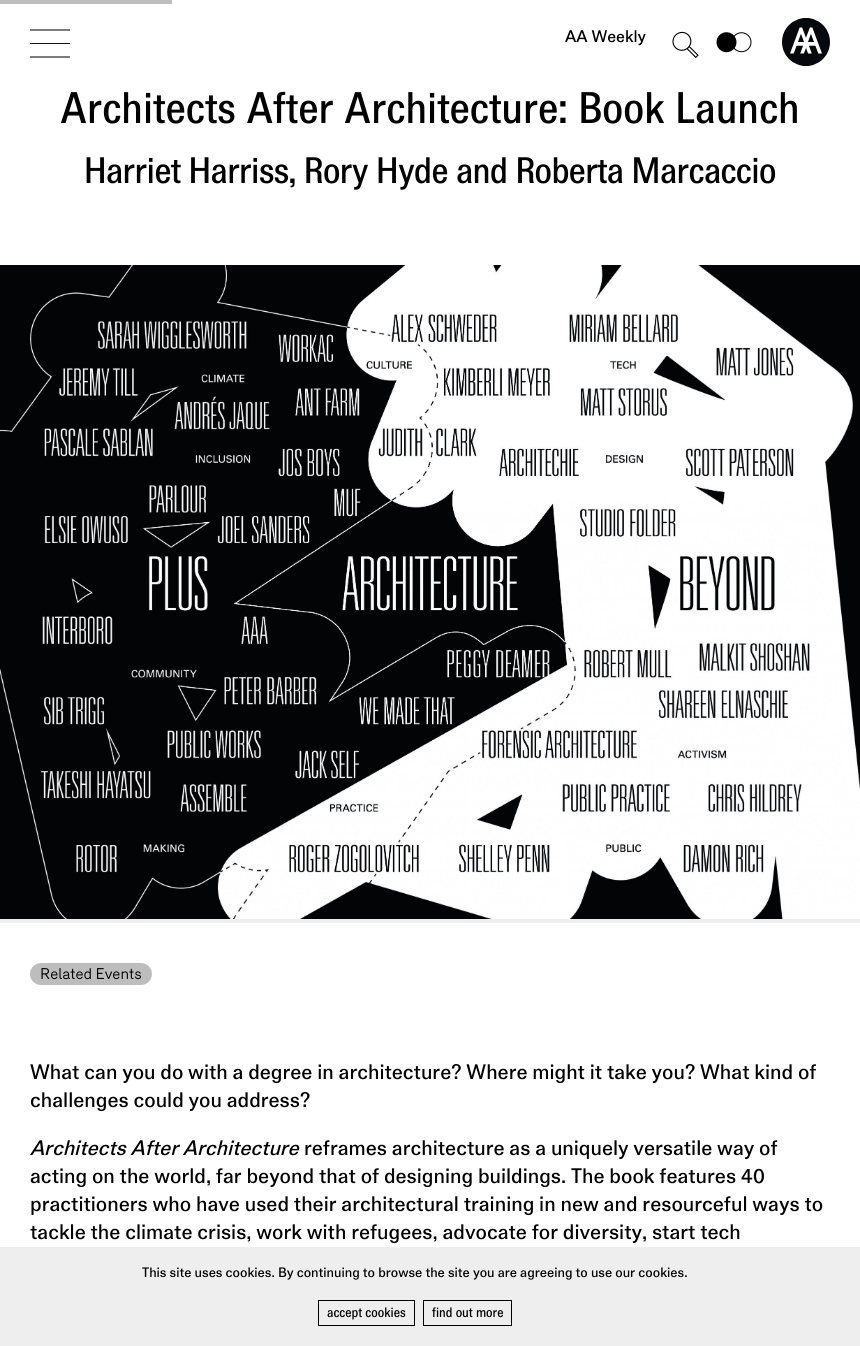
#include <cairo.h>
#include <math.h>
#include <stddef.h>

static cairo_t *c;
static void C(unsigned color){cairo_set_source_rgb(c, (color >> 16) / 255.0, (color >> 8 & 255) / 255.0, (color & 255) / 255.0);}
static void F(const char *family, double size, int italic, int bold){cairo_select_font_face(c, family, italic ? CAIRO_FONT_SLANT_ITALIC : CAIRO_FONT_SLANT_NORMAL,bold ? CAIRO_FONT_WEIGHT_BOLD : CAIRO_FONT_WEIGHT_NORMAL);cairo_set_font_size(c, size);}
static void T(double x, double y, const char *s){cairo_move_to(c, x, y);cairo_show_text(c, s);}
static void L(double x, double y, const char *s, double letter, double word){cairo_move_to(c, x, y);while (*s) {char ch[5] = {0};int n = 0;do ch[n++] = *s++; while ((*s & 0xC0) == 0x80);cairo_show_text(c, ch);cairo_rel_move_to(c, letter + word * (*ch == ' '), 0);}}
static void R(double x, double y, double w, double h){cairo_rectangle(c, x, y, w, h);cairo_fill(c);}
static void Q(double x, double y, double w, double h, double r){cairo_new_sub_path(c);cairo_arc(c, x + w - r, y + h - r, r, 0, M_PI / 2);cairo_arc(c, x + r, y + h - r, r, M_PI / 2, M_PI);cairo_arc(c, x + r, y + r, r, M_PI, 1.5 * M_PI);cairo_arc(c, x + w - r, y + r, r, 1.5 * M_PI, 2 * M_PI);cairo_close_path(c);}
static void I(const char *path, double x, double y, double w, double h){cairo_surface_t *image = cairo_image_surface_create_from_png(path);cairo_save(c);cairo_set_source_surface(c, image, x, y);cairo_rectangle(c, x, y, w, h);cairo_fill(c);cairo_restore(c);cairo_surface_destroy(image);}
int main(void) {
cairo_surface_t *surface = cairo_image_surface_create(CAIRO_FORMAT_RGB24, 860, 1346);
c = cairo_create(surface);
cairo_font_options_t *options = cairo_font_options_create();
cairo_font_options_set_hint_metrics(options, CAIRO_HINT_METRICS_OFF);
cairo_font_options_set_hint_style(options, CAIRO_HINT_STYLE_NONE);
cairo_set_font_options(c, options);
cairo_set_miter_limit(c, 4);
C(0xffffff);
cairo_paint(c);
C(0x12120d);
R(30,43,40,1);
cairo_save(c);
cairo_rectangle(c,30,23,40,40);
cairo_clip(c);
cairo_new_path(c);
cairo_move_to(c,30,57);
cairo_line_to(c,78,57);
cairo_move_to(c,30,30);
cairo_line_to(c,78,30);
cairo_set_line_width(c,1.1);
cairo_stroke(c);
cairo_restore(c);
F("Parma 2",16,0,0);
C(0x000000);
T(565,42,"AA Weekly");
I("1.png",672,31,27,27);
I("2.png",716,32,36,21);
I("3.png",782,18,48,48);
C(0xbdbdbd);
R(0,0,172,4);
F("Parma",42,0,0);
C(0x000000);
T(60,123,"Architects After Architecture: Book Launch");
F("Parma",35,0,0);
L(84,183,"Harriet Harriss, Rory Hyde and Roberta Marcaccio",-.6,0);
C(0xeeeeee);
R(0,919,860,4);
I("4.png",0,265,860,654);
C(0xbdbdbd);
Q(30,963,122,22,11);
cairo_fill(c);
F("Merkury",15,0,0);
C(0x000000);
T(40,979,"Related Events");
F("Parma 2",20,0,0);
T(30,1079,"What can you do with a degree in architecture? Where might it take you? What kind of");
T(30,1107,"challenges could you address?");
F("Parma",20,1,0);
T(30,1155,"Architects After Architecture");
F("Parma 2",20,0,0);
T(304,1155,"reframes architecture as a uniquely versatile way of");
T(30,1183,"acting on the world, far beyond that of designing buildings. The book features 40");
T(30,1211,"practitioners who have used their architectural training in new and resourceful ways to");
T(30,1239,"tackle the climate crisis, work with refugees, advocate for diversity, start tech");
C(0xeeeeee);
R(0,1247,860,99);
F("Parma 2",13,0,0);
C(0x000000);
T(142,1277,"This site uses cookies. By continuing to browse the site you are agreeing to use our cookies.");
cairo_rectangle(c,318.5,1300.5,96,25);
cairo_set_line_width(c,1);
cairo_stroke(c);
F("Parma",13,0,0);
T(327,1317,"accept cookies");
cairo_rectangle(c,423.5,1300.5,88,25);
cairo_stroke(c);
T(432,1317,"find out more");
cairo_surface_write_to_png(surface, "o.png");
cairo_font_options_destroy(options);
cairo_destroy(c);
cairo_surface_destroy(surface);
return 0;
}
